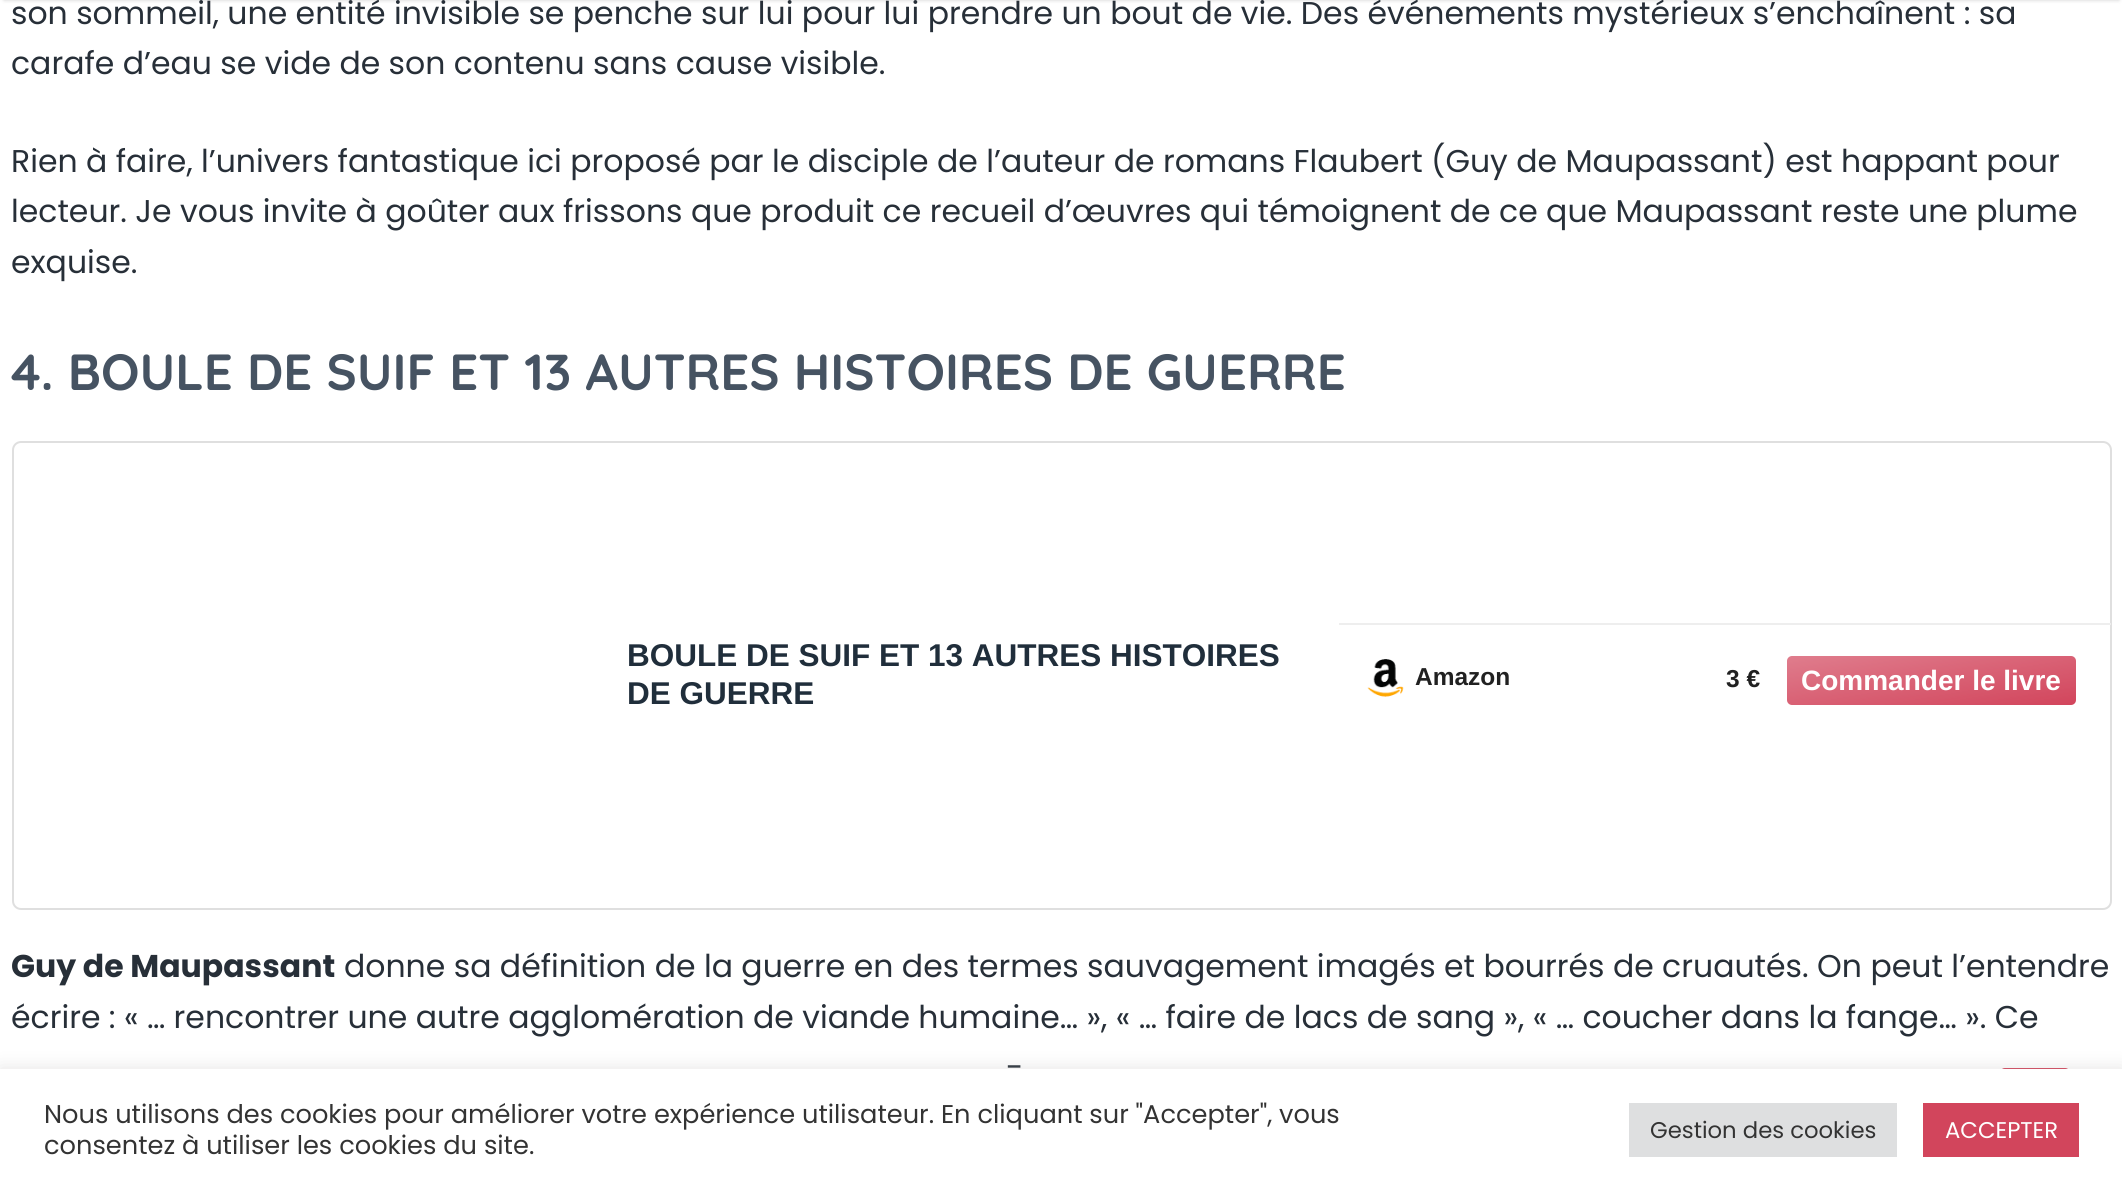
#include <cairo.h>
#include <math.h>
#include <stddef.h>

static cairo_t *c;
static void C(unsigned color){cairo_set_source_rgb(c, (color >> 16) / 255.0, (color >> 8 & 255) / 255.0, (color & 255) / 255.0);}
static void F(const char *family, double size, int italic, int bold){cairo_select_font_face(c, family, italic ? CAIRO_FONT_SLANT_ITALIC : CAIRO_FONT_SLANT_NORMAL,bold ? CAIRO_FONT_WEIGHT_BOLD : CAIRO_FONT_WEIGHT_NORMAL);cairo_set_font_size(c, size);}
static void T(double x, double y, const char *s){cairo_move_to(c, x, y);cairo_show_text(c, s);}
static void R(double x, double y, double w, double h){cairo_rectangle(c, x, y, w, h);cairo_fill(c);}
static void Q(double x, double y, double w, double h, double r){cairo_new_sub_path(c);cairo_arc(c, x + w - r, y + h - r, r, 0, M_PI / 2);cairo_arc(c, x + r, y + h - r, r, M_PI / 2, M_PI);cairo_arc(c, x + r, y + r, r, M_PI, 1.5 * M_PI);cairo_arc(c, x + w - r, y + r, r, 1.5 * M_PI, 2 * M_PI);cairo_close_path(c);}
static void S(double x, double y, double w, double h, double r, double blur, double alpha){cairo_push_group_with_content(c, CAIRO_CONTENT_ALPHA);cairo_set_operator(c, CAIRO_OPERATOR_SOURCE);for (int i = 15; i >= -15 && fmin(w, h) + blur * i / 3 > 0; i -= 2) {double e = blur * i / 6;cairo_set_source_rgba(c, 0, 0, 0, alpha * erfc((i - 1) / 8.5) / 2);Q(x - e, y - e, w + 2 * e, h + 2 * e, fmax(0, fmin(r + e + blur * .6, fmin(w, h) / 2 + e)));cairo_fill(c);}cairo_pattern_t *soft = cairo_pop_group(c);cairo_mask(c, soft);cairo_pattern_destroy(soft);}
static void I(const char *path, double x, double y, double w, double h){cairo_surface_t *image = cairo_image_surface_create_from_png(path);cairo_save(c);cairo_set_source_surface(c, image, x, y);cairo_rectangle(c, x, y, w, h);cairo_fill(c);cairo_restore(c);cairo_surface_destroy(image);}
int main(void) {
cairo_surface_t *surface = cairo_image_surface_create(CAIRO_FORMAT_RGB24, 2122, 1190);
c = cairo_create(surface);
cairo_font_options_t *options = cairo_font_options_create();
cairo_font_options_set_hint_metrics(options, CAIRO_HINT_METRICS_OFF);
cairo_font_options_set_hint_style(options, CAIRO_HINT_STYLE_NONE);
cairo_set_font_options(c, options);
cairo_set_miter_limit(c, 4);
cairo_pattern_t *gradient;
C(0xffffff);
cairo_paint(c);
C(0x000000);
S(4,-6,2115,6,0,2,.2);
F("Poppins",31.5,0,0);
C(0x272f38);
T(11,24,"son sommeil, une entité invisible se penche sur lui pour lui prendre un bout de vie. Des événements mystérieux s’enchaînent : sa");
T(11,74,"carafe d’eau se vide de son contenu sans cause visible.");
T(11,172,"Rien à faire, l’univers fantastique ici proposé par le disciple de l’auteur de romans Flaubert (Guy de Maupassant) est happant pour");
T(11,222,"lecteur. Je vous invite à goûter aux frissons que produit ce recueil d’œuvres qui témoignent de ce que Maupassant reste une plume");
T(11,273,"exquise.");
F("Quicksand",50.75,0,1);
C(0x465362);
T(11,390,"4. BOULE DE SUIF ET 13 AUTRES HISTOIRES DE GUERRE");
Q(13,442,2098,467,8);
C(0xdfdfdf);
cairo_stroke(c);
F("Liberation Sans",31.5,0,1);
C(0x202e3b);
T(627,666,"BOULE DE SUIF ET 13 AUTRES HISTOIRES");
T(627,704,"DE GUERRE");
C(0xeeeeee);
R(1339,623,772,2);
I("1.png",1367,659,37,38);
F("Liberation Sans",24.5,0,1);
C(0x212121);
T(1415,685,"Amazon");
T(1726,687,"3 €");
C(0xd2455c);
Q(1787,656,289,49,5);
cairo_fill(c);
F("Liberation Sans",28,0,1);
C(0xffffff);
T(1801,690,"Commander le livre");
gradient = cairo_pattern_create_linear(1923,633,1939,728);
cairo_pattern_add_color_stop_rgba(gradient,0,1,1,1,.3);
cairo_pattern_add_color_stop_rgba(gradient,1,1,1,1,0);
cairo_set_source(c,gradient);
cairo_pattern_destroy(gradient);
R(1787,656,289,49);
F("Poppins",31.5,0,1);
C(0x272f38);
T(11,977,"Guy de Maupassant");
F("Poppins",31.5,0,0);
T(344,977,"donne sa définition de la guerre en des termes sauvagement imagés et bourrés de cruautés. On peut l’entendre");
T(11,1028,"écrire : « … rencontrer une autre agglomération de viande humaine… », « … faire de lacs de sang », « … coucher dans la fange… ». Ce");
T(1006,1078,"-");
C(0xd2455c);
Q(2000,1068,70,70,5);
cairo_fill(c);
C(0xacabab);
S(0,1068,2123,120,0,9,.3);
C(0xffffff);
R(0,1069,2122,121);
F("Poppins",25.67,0,0);
C(0x333333);
T(44,1123,"Nous utilisons des cookies pour améliorer votre expérience utilisateur. En cliquant sur \"Accepter\", vous");
T(44,1154,"consentez à utiliser les cookies du site.");
C(0xdedfe0);
R(1629,1103,268,54);
F("Poppins",22.75,0,0);
C(0x333333);
T(1650,1138,"Gestion des cookies");
C(0xd2455c);
R(1923,1103,156,54);
C(0xffffff);
T(1945,1138,"ACCEPTER");
cairo_surface_write_to_png(surface, "o.png");
cairo_font_options_destroy(options);
cairo_destroy(c);
cairo_surface_destroy(surface);
return 0;
}
